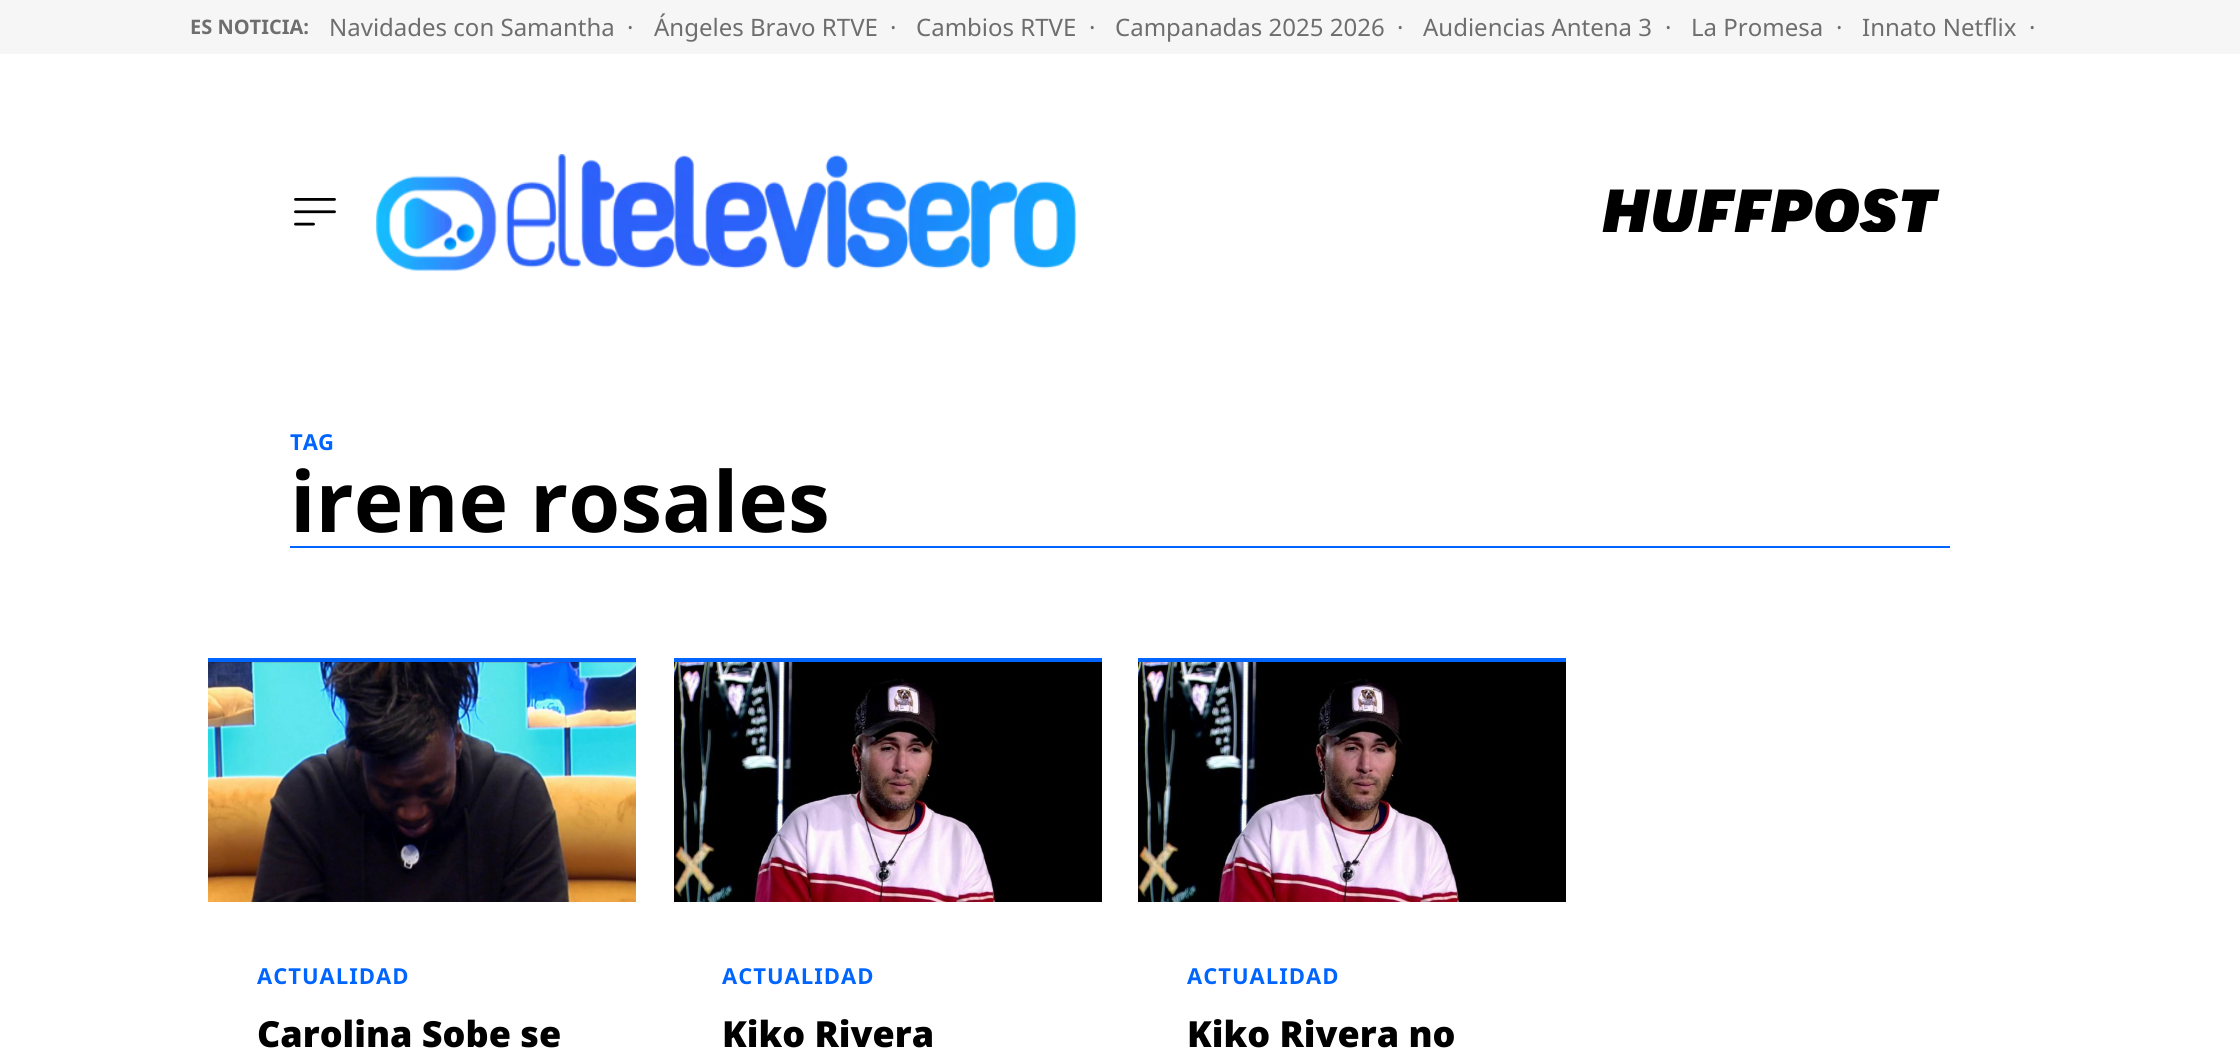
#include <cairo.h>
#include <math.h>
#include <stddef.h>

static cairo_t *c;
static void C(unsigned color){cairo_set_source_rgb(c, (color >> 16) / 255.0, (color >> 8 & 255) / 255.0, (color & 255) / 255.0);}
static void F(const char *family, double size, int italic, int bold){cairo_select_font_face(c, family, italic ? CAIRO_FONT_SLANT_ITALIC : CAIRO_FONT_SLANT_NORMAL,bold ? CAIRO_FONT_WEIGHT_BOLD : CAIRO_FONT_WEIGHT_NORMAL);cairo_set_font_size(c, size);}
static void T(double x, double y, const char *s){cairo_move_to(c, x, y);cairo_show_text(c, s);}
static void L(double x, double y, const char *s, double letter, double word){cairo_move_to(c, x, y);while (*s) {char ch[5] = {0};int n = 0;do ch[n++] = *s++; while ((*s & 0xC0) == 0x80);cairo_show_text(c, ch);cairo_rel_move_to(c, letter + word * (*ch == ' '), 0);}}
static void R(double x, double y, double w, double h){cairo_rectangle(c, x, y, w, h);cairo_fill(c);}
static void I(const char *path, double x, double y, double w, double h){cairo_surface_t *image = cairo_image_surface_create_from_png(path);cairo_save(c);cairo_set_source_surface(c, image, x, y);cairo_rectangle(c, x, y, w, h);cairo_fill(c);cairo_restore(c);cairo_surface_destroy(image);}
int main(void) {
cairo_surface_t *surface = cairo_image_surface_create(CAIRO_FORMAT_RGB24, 2240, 1061);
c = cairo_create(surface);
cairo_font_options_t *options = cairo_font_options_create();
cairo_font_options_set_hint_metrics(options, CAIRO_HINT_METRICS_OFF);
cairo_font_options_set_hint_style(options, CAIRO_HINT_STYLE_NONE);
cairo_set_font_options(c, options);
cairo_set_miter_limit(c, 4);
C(0xffffff);
cairo_paint(c);
C(0xf6f6f6);
R(0,0,2240,54);
F("Noto Sans",20,0,1);
C(0x6e6e6e);
T(190,34,"ES NOTICIA:");
F("Noto Sans",24,0,0);
T(329,36,"Navidades con Samantha");
T(627,36,"·");
T(654,36,"Ángeles Bravo RTVE");
T(890,36,"·");
T(916,36,"Cambios RTVE");
T(1089,36,"·");
T(1115,36,"Campanadas 2025 2026");
T(1397,36,"·");
T(1423,36,"Audiencias Antena 3");
T(1665,36,"·");
T(1691,36,"La Promesa");
T(1836,36,"·");
T(1862,36,"Innato Netflix");
T(2029,36,"·");
I("1.png",294,198,42,28);
I("2.png",376,154,700,118);
I("3.png",1602,188,338,44);
C(0x0064ff);
R(290,546,1660,2);
F("Noto Sans",22,0,1);
T(290,450,"TAG");
F("Noto Sans",84,0,1);
C(0x000000);
T(290,532,"irene rosales");
C(0x0064ff);
R(208,658,428,4);
I("4.png",208,662,428,240);
F("Noto Sans",22,0,1);
L(257,984,"ACTUALIDAD",1,0);
F("Noto Sans Black",36,0,0);
C(0x000000);
T(257,1047,"Carolina Sobe se");
C(0x0064ff);
R(674,658,428,4);
I("5.png",674,662,428,240);
F("Noto Sans",22,0,1);
L(722,984,"ACTUALIDAD",1,0);
F("Noto Sans Black",36,0,0);
C(0x000000);
T(722,1047,"Kiko Rivera");
C(0x0064ff);
R(1138,658,428,4);
I("5.png",1138,662,428,240);
F("Noto Sans",22,0,1);
L(1187,984,"ACTUALIDAD",1,0);
F("Noto Sans Black",36,0,0);
C(0x000000);
T(1187,1047,"Kiko Rivera no");
cairo_surface_write_to_png(surface, "o.png");
cairo_font_options_destroy(options);
cairo_destroy(c);
cairo_surface_destroy(surface);
return 0;
}
